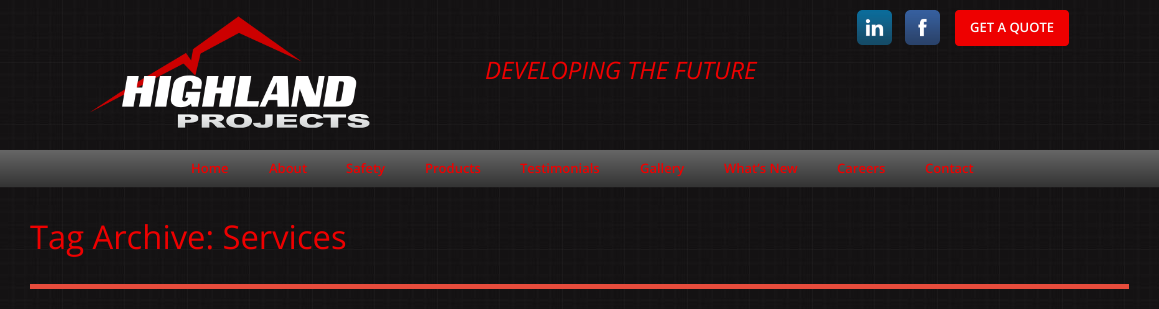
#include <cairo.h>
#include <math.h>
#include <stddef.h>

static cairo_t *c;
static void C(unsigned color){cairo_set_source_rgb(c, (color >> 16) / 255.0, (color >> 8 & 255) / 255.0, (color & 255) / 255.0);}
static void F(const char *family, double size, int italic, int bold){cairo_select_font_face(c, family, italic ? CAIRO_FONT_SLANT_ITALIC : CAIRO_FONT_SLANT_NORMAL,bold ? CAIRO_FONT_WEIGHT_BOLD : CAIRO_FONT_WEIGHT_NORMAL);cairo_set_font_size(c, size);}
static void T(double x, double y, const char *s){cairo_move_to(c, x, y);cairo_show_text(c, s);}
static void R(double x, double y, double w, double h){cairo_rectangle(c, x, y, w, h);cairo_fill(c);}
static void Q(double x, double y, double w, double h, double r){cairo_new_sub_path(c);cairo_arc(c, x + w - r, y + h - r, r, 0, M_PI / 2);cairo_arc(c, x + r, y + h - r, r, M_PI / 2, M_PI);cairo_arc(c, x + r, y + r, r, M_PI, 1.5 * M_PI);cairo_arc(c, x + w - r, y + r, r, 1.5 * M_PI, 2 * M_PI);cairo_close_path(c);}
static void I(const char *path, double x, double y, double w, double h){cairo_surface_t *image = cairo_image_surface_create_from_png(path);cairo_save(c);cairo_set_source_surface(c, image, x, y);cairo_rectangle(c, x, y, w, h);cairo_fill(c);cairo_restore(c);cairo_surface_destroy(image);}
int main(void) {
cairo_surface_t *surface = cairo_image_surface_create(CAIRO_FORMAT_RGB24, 1159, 309);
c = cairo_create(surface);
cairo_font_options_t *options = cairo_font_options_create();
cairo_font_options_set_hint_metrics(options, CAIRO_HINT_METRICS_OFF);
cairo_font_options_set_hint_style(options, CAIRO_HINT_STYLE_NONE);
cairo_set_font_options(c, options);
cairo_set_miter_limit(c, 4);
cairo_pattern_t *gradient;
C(0xffffff);
cairo_paint(c);
I("1.png",0,0,1159,309);
I("2.png",90,16,280,113);
I("3.png",857,10,35,35);
I("4.png",905,10,35,35);
C(0xee0000);
Q(955,10,114,36,4);
cairo_fill(c);
F("Open Sans SemiBold",13,0,0);
C(0xfafafa);
T(970,32,"GET A QUOTE");
F("Open Sans",24,1,0);
C(0xee0000);
T(485,79,"DEVELOPING THE FUTURE");
gradient = cairo_pattern_create_linear(580,150,580,187);
cairo_pattern_add_color_stop_rgba(gradient,0,0.4,0.4,0.4,1);
cairo_pattern_add_color_stop_rgba(gradient,1,0.2,0.2,0.2,1);
cairo_set_source(c,gradient);
cairo_pattern_destroy(gradient);
R(0,150,1159,37);
F("Open Sans SemiBold",13,0,0);
C(0xee0000);
T(191,173,"Home");
T(269,173,"About");
T(346,173,"Safety");
T(425,173,"Products");
T(520,173,"Testimonials");
T(640,173,"Gallery");
T(724,173,"What’s New");
T(837,173,"Careers");
T(925,173,"Contact");
F("Open Sans",32.75,0,0);
T(30,249,"Tag Archive: Services");
C(0xe74c3c);
R(30,284,1099,5);
cairo_surface_write_to_png(surface, "o.png");
cairo_font_options_destroy(options);
cairo_destroy(c);
cairo_surface_destroy(surface);
return 0;
}
